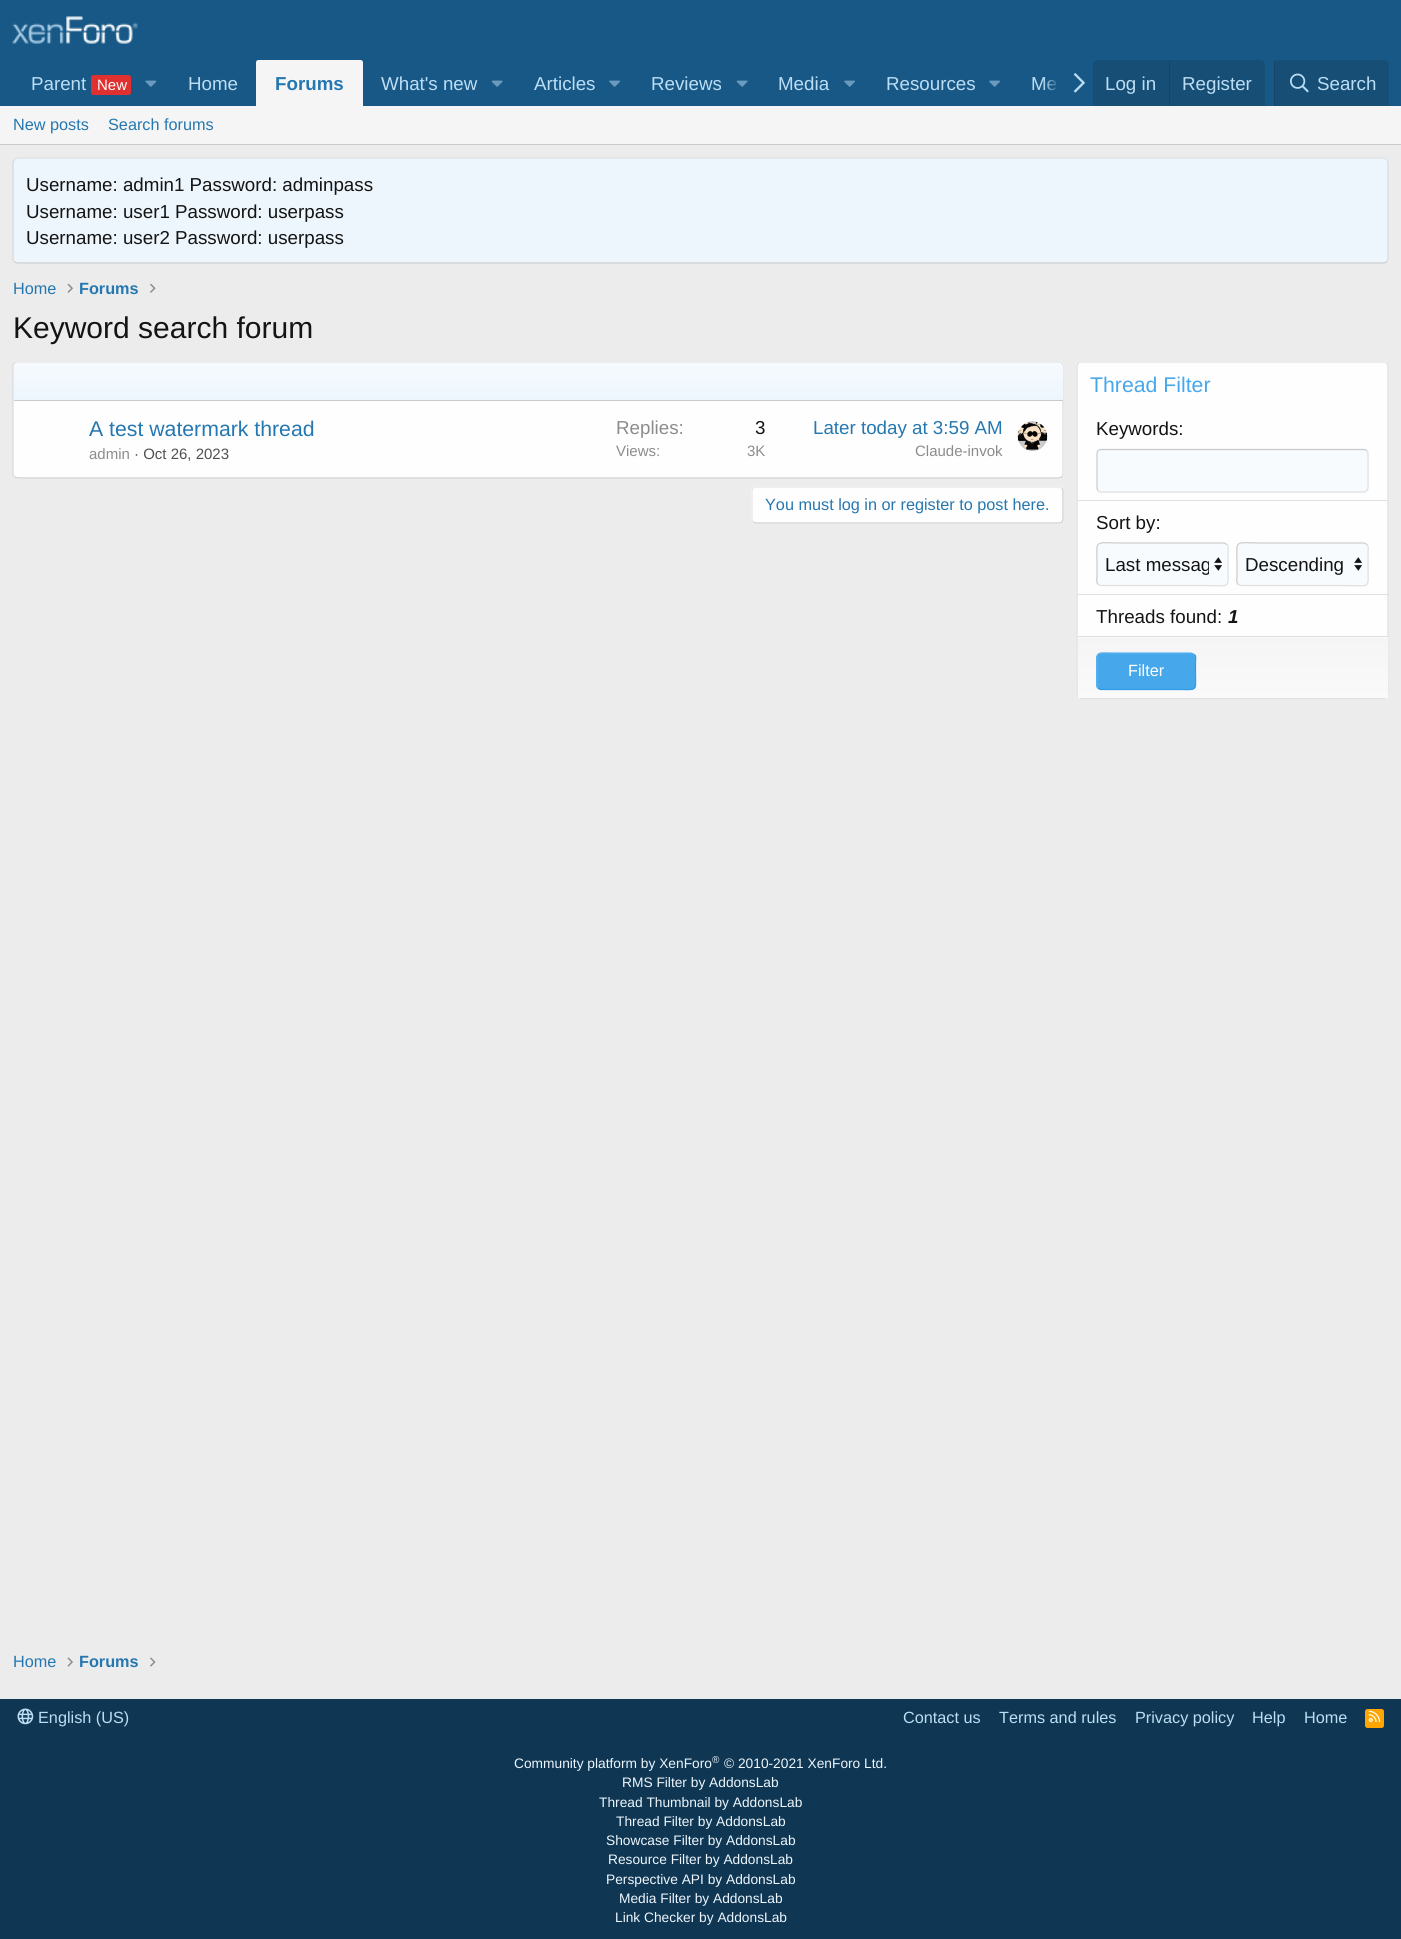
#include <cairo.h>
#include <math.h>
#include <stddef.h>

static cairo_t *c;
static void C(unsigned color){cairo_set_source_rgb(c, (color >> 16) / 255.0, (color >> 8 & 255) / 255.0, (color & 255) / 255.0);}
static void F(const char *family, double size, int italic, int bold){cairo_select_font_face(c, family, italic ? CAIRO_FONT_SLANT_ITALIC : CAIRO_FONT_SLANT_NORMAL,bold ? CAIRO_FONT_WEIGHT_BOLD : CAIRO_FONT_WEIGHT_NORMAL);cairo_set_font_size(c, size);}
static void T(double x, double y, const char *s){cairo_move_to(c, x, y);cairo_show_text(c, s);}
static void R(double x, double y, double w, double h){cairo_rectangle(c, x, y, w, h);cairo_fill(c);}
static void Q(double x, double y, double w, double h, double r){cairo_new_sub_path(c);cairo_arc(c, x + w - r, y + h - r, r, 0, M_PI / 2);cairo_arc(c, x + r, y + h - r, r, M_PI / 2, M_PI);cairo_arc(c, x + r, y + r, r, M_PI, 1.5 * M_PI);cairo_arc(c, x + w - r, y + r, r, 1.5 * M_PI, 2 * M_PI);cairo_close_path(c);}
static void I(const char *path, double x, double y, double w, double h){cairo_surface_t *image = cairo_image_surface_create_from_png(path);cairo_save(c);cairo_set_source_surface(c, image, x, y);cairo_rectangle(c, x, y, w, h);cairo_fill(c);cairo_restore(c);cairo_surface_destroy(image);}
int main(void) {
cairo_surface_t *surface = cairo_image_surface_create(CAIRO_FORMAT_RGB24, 1401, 1939);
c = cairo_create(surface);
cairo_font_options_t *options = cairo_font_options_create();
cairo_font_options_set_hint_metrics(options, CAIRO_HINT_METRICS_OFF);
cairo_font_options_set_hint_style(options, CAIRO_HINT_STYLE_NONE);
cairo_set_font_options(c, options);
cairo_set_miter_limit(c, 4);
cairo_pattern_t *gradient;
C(0xececec);
cairo_paint(c);
C(0x185886);
R(0,0,1401,106);
I("1.png",12,16,126,28);
F("Liberation Sans",18.75,0,0);
C(0xbcdef5);
T(31,90,"Parent");
C(0xe03030);
Q(91,75,40,20,2.5);
cairo_fill(c);
F("Liberation Sans",15,0,0);
C(0xffffff);
T(97,90,"New");
I("2.png",145,80,12,7);
F("Liberation Sans",18.75,0,0);
C(0xbcdef5);
T(188,90,"Home");
C(0xf5f5f5);
cairo_new_path(c);
cairo_move_to(c,258.5,60);
cairo_line_to(c,360.5,60);
cairo_curve_to(c,362,60,363,61,363,62.5);
cairo_line_to(c,363,106);
cairo_line_to(c,256,106);
cairo_line_to(c,256,62.5);
cairo_curve_to(c,256,61,257,60,258.5,60);
cairo_close_path(c);
cairo_fill(c);
F("Liberation Sans",18.75,0,1);
C(0x2577b1);
T(275,90,"Forums");
F("Liberation Sans",18.75,0,0);
C(0xbcdef5);
T(381,90,"What's new");
I("3.png",491,80,12,7);
T(534,90,"Articles");
I("4.png",609,80,11,7);
T(651,90,"Reviews");
I("3.png",736,80,12,7);
T(778,90,"Media");
I("4.png",844,80,11,7);
T(886,90,"Resources");
I("4.png",989,80,11,7);
T(1031,90,"Me");
gradient = cairo_pattern_create_linear(1043,83,1093,83);
cairo_pattern_add_color_stop_rgba(gradient,0,0.094,0.345,0.525,0);
cairo_pattern_add_color_stop_rgba(gradient,.33,0.094,0.345,0.525,1);
cairo_set_source(c,gradient);
cairo_pattern_destroy(gradient);
R(1043,77,14,14);
I("5.png",1073,73,12,20);
C(0x174e75);
cairo_new_path(c);
cairo_move_to(c,1098,60);
cairo_line_to(c,1260,60);
cairo_curve_to(c,1263,60,1265,62,1265,65);
cairo_line_to(c,1265,106);
cairo_line_to(c,1093,106);
cairo_line_to(c,1093,65);
cairo_curve_to(c,1093,62,1095,60,1098,60);
cairo_close_path(c);
cairo_fill(c);
C(0xbcdef5);
T(1105,90,"Log in");
C(0x174566);
R(1169,60,1,46);
C(0xbcdef5);
T(1182,90,"Register");
C(0x174e75);
cairo_new_path(c);
cairo_move_to(c,1279,60);
cairo_line_to(c,1384,60);
cairo_curve_to(c,1387,60,1389,62,1389,65);
cairo_line_to(c,1389,106);
cairo_line_to(c,1274,106);
cairo_line_to(c,1274,65);
cairo_curve_to(c,1274,62,1276,60,1279,60);
cairo_close_path(c);
cairo_fill(c);
cairo_set_source_rgba(c,0.078,0.078,0.078,0.15);
R(1274,60,1,46);
I("6.png",1290,73,19,20);
C(0xbcdef5);
T(1317,90,"Search");
C(0xf5f5f5);
R(0,106,1401,38);
C(0xcbcbcb);
R(0,144,1401,1);
F("Liberation Sans",16.25,0,0);
C(0x2577b1);
T(13,130,"New posts");
T(108,130,"Search forums");
C(0xedf6fd);
Q(13,158,1376,106,5);
cairo_fill(c);
cairo_new_path(c);
cairo_move_to(c,14.5,159.5);
cairo_line_to(c,17.5,158);
cairo_line_to(c,1384,158);
cairo_line_to(c,1387,159.5);
C(0xdfdfdf);
cairo_set_line_width(c,1.2);
cairo_stroke(c);
cairo_new_path(c);
cairo_move_to(c,1387,159.5);
cairo_line_to(c,1388,162);
cairo_line_to(c,1388,259);
cairo_line_to(c,1387,262);
C(0xd8d8d8);
cairo_stroke(c);
cairo_new_path(c);
cairo_move_to(c,1387,262);
cairo_line_to(c,1384,263);
cairo_line_to(c,17.5,263);
cairo_line_to(c,14.5,262);
C(0xcbcbcb);
cairo_stroke(c);
cairo_new_path(c);
cairo_move_to(c,14.5,262);
cairo_line_to(c,13,259);
cairo_line_to(c,13,162);
cairo_line_to(c,14.5,159.5);
C(0xd8d8d8);
cairo_stroke(c);
F("Liberation Sans",18.75,0,0);
C(0x141414);
T(26,191,"Username: admin1 Password: adminpass");
T(26,218,"Username: user1 Password: userpass");
T(26,244,"Username: user2 Password: userpass");
F("Liberation Sans",16.25,0,0);
C(0x2577b1);
T(13,294,"Home");
I("7.png",67,283,6,10);
F("Liberation Sans",16.25,0,1);
T(79,294,"Forums");
I("8.png",150,283,6,10);
F("Liberation Sans",30,0,0);
C(0x141414);
T(13,338,"Keyword search forum");
C(0xfefefe);
Q(13,361,1051,118,5);
cairo_fill(c);
cairo_new_path(c);
cairo_move_to(c,14.5,363);
cairo_line_to(c,17.5,362);
cairo_line_to(c,1059,362);
cairo_line_to(c,1062,363);
C(0xdfdfdf);
cairo_stroke(c);
cairo_new_path(c);
cairo_move_to(c,1062,363);
cairo_curve_to(c,1062.5,364,1063,365,1063,366);
cairo_line_to(c,1063,474);
cairo_curve_to(c,1063,475,1062.5,476,1062,477);
C(0xd8d8d8);
cairo_stroke(c);
cairo_new_path(c);
cairo_move_to(c,1062,477);
cairo_line_to(c,1059,478);
cairo_line_to(c,17.5,478);
cairo_line_to(c,14.5,477);
C(0xcbcbcb);
cairo_stroke(c);
cairo_new_path(c);
cairo_move_to(c,14.5,477);
cairo_curve_to(c,13.5,476,13,475,13,474);
cairo_line_to(c,13,366);
cairo_curve_to(c,13,365,13.5,364,14.5,363);
C(0xd8d8d8);
cairo_stroke(c);
gradient = cairo_pattern_create_linear(538,400,538,363);
cairo_pattern_add_color_stop_rgba(gradient,0,0.929,0.965,0.992,1);
cairo_pattern_add_color_stop_rgba(gradient,1,0.965,0.98,0.996,1);
cairo_set_source(c,gradient);
cairo_pattern_destroy(gradient);
cairo_new_path(c);
cairo_move_to(c,18,363);
cairo_line_to(c,1059,363);
cairo_curve_to(c,1061,363,1063,365,1063,367);
cairo_line_to(c,1063,400);
cairo_line_to(c,14,400);
cairo_line_to(c,14,367);
cairo_curve_to(c,14,365,16,363,18,363);
cairo_close_path(c);
cairo_fill(c);
C(0xcbcbcb);
R(14,400,1049,1);
F("Liberation Sans",21.25,0,0);
C(0x2577b1);
T(89,436,"A test watermark thread");
F("Liberation Sans",15,0,0);
C(0x8c8c8c);
T(89,459,"admin");
C(0x505050);
T(134,459,"· Oct 26, 2023");
F("Liberation Sans",18.75,0,0);
C(0x8c8c8c);
T(616,434,"Replies:");
C(0x141414);
T(755,434,"3");
F("Liberation Sans",15,0,0);
C(0x8c8c8c);
T(616,456,"Views:");
T(747,456,"3K");
F("Liberation Sans",18.75,0,0);
C(0x2577b1);
T(813,434,"Later today at 3:59 AM");
F("Liberation Sans",15,0,0);
C(0x8c8c8c);
T(915,456,"Claude-invok");
I("9.png",1017,421,31,30);
C(0xfefefe);
Q(751,486,313,38,5);
cairo_fill(c);
cairo_new_path(c);
cairo_move_to(c,1062,488);
cairo_curve_to(c,1062.5,489,1063,490,1063,491);
cairo_line_to(c,1063,519);
cairo_curve_to(c,1063,520,1062.5,521,1062,522);
cairo_curve_to(c,1061,522.5,1060,523,1059,523);
cairo_line_to(c,756,523);
cairo_curve_to(c,755,523,754,522.5,753,522);
C(0xcbcbcb);
cairo_stroke(c);
cairo_new_path(c);
cairo_move_to(c,753,522);
cairo_curve_to(c,752.5,521,752,520,752,519);
cairo_line_to(c,752,491);
cairo_curve_to(c,752,490,752.5,489,753,488);
cairo_curve_to(c,754,487.5,755,487,756,487);
cairo_line_to(c,1059,487);
cairo_curve_to(c,1060,487,1061,487.5,1062,488);
C(0xe5e5e5);
cairo_stroke(c);
F("Liberation Sans",16.25,0,0);
C(0x2577b1);
T(765,510,"You must log in or register to post here.");
C(0xfefefe);
Q(1076,361,313,338,5);
cairo_fill(c);
cairo_new_path(c);
cairo_move_to(c,1078,363);
cairo_curve_to(c,1079,362.5,1080,362,1081,362);
cairo_line_to(c,1384,362);
cairo_curve_to(c,1385,362,1386,362.5,1387,363);
C(0xdfdfdf);
cairo_stroke(c);
cairo_new_path(c);
cairo_move_to(c,1387,363);
cairo_curve_to(c,1387.5,364,1388,365,1388,366);
cairo_line_to(c,1388,694);
cairo_curve_to(c,1388,695,1387.5,696,1387,697);
C(0xd8d8d8);
cairo_stroke(c);
cairo_new_path(c);
cairo_move_to(c,1387,697);
cairo_curve_to(c,1386,697.5,1385,698,1384,698);
cairo_line_to(c,1081,698);
cairo_curve_to(c,1080,698,1079,697.5,1078,697);
C(0xcbcbcb);
cairo_stroke(c);
cairo_new_path(c);
cairo_move_to(c,1078,697);
cairo_curve_to(c,1077.5,696,1077,695,1077,694);
cairo_line_to(c,1077,366);
cairo_curve_to(c,1077,365,1077.5,364,1078,363);
C(0xd8d8d8);
cairo_stroke(c);
F("Liberation Sans",21.25,0,0);
C(0x47a7eb);
T(1090,392,"Thread Filter");
F("Liberation Sans",18.75,0,0);
C(0x141414);
T(1096,435,"Keywords:");
C(0xf7fbfe);
Q(1096,449,273,44,5);
cairo_fill(c);
cairo_new_path(c);
cairo_move_to(c,1367,450.5);
cairo_curve_to(c,1367.5,451.5,1368,452.5,1368,454);
cairo_line_to(c,1368,487.5);
cairo_curve_to(c,1368,488.5,1367.5,490,1367,490.5);
cairo_curve_to(c,1366,491.5,1365,492,1364,492);
cairo_line_to(c,1101,492);
cairo_curve_to(c,1100,492,1099,491.5,1098,490.5);
C(0xdfdfdf);
cairo_stroke(c);
cairo_new_path(c);
cairo_move_to(c,1098,490.5);
cairo_curve_to(c,1097.5,490,1097,488.5,1097,487.5);
cairo_line_to(c,1097,454);
cairo_curve_to(c,1097,452.5,1097.5,451.5,1098,450.5);
cairo_curve_to(c,1099,450,1100,449.5,1101,449.5);
cairo_line_to(c,1364,449.5);
cairo_curve_to(c,1365,449.5,1366,450,1367,450.5);
C(0xcbcbcb);
cairo_stroke(c);
C(0xdfdfdf);
R(1078,500,310,1);
C(0x141414);
T(1096,529,"Sort by:");
C(0xf7fbfe);
Q(1096,543,133,43,5);
cairo_fill(c);
I("10.png",1214,557,8,14);
cairo_new_path(c);
cairo_move_to(c,1227,544.5);
cairo_curve_to(c,1229,546.5,1228,550.5,1228,553);
cairo_line_to(c,1228,564.5);
cairo_curve_to(c,1228,590.5,1232,585.5,1203.5,585.5);
cairo_line_to(c,1101,585.5);
cairo_line_to(c,1098,584.5);
C(0xdfdfdf);
cairo_stroke(c);
cairo_new_path(c);
cairo_move_to(c,1098,584.5);
cairo_curve_to(c,1096,582,1097,578,1097,575.5);
cairo_line_to(c,1097,564.5);
cairo_curve_to(c,1097,538.5,1093,543,1121.5,543);
cairo_line_to(c,1224,543);
cairo_line_to(c,1227,544.5);
C(0xcbcbcb);
cairo_stroke(c);
cairo_save(c);
cairo_rectangle(c,1105,551,104,27);
cairo_clip(c);
C(0x141414);
T(1105,571,"Last messag");
cairo_restore(c);
C(0xf7fbfe);
Q(1236,543,133,43,5);
cairo_fill(c);
I("10.png",1354,557,8,14);
cairo_new_path(c);
cairo_move_to(c,1367,544.5);
cairo_curve_to(c,1369,546.5,1368,550.5,1368,553);
cairo_line_to(c,1368,564.5);
cairo_curve_to(c,1368,590.5,1372,585.5,1343.5,585.5);
cairo_line_to(c,1241,585.5);
cairo_line_to(c,1238,584.5);
C(0xdfdfdf);
cairo_stroke(c);
cairo_new_path(c);
cairo_move_to(c,1238,584.5);
cairo_curve_to(c,1236,582,1237,578,1237,575.5);
cairo_line_to(c,1237,564.5);
cairo_curve_to(c,1237,538.5,1233,543,1261.5,543);
cairo_line_to(c,1364,543);
cairo_line_to(c,1367,544.5);
C(0xcbcbcb);
cairo_stroke(c);
C(0x141414);
T(1245,571,"Descending");
C(0xdfdfdf);
R(1078,594,310,1);
C(0x141414);
T(1096,623,"Threads found:");
F("Liberation Sans",18.75,1,1);
T(1228,623,"1");
gradient = cairo_pattern_create_linear(1233,578,1233,638);
cairo_pattern_add_color_stop_rgba(gradient,0,0.961,0.961,0.961,1);
cairo_pattern_add_color_stop_rgba(gradient,1,0.98,0.98,0.98,1);
cairo_set_source(c,gradient);
cairo_pattern_destroy(gradient);
R(1078,637,310,1);
gradient = cairo_pattern_create_linear(1233,638,1233,698);
cairo_pattern_add_color_stop_rgba(gradient,0,0.961,0.961,0.961,1);
cairo_pattern_add_color_stop_rgba(gradient,1,0.98,0.98,0.98,1);
cairo_set_source(c,gradient);
cairo_pattern_destroy(gradient);
R(1078,638,310,60);
C(0xdfdfdf);
R(1078,636,310,1);
C(0x47a7eb);
Q(1096,653,100,37,5);
cairo_fill(c);
cairo_new_path(c);
cairo_move_to(c,1194.5,654.5);
cairo_curve_to(c,1196.5,656.5,1195.5,659.5,1195.5,662);
cairo_line_to(c,1195.5,671);
cairo_curve_to(c,1195.5,692.5,1198.5,689.5,1176,689.5);
cairo_line_to(c,1101,689.5);
cairo_line_to(c,1098,688);
C(0x309ce8);
cairo_stroke(c);
cairo_new_path(c);
cairo_move_to(c,1098,688);
cairo_curve_to(c,1096,686,1097,683,1097,680.5);
cairo_line_to(c,1097,671);
cairo_curve_to(c,1097,650,1094,653,1116,653);
cairo_line_to(c,1191,653);
cairo_line_to(c,1194.5,654.5);
C(0x5eb2ed);
cairo_stroke(c);
F("Liberation Sans",16.25,0,0);
C(0xffffff);
T(1128,676,"Filter");
C(0x2577b1);
T(13,1667,"Home");
I("11.png",67,1657,6,10);
F("Liberation Sans",16.25,0,1);
T(79,1667,"Forums");
I("12.png",150,1657,6,10);
C(0x0f3652);
R(0,1699,1401,240);
I("13.png",17,1708,17,17);
F("Liberation Sans",16.25,0,0);
C(0xbcdef5);
T(38,1723,"English (US)");
T(903,1723,"Contact us");
T(999,1723,"Terms and rules");
T(1135,1723,"Privacy policy");
T(1252,1723,"Help");
T(1304,1723,"Home");
C(0xffa500);
Q(1365,1709,19,19,2.5);
cairo_fill(c);
I("14.png",1368,1710,13,13);
F("Liberation Sans",13.75,0,0);
C(0xedf6fd);
T(514,1768,"Community platform by XenForo");
F("Liberation Sans",10,0,0);
T(712,1763,"®");
F("Liberation Sans",13.75,0,0);
T(724,1768,"© 2010-2021 XenForo Ltd.");
T(622,1787,"RMS Filter by AddonsLab");
T(599,1807,"Thread Thumbnail by AddonsLab");
T(616,1826,"Thread Filter by AddonsLab");
T(606,1845,"Showcase Filter by AddonsLab");
T(608,1864,"Resource Filter by AddonsLab");
T(606,1884,"Perspective API by AddonsLab");
T(619,1903,"Media Filter by AddonsLab");
T(615,1922,"Link Checker by AddonsLab");
cairo_surface_write_to_png(surface, "o.png");
cairo_font_options_destroy(options);
cairo_destroy(c);
cairo_surface_destroy(surface);
return 0;
}
